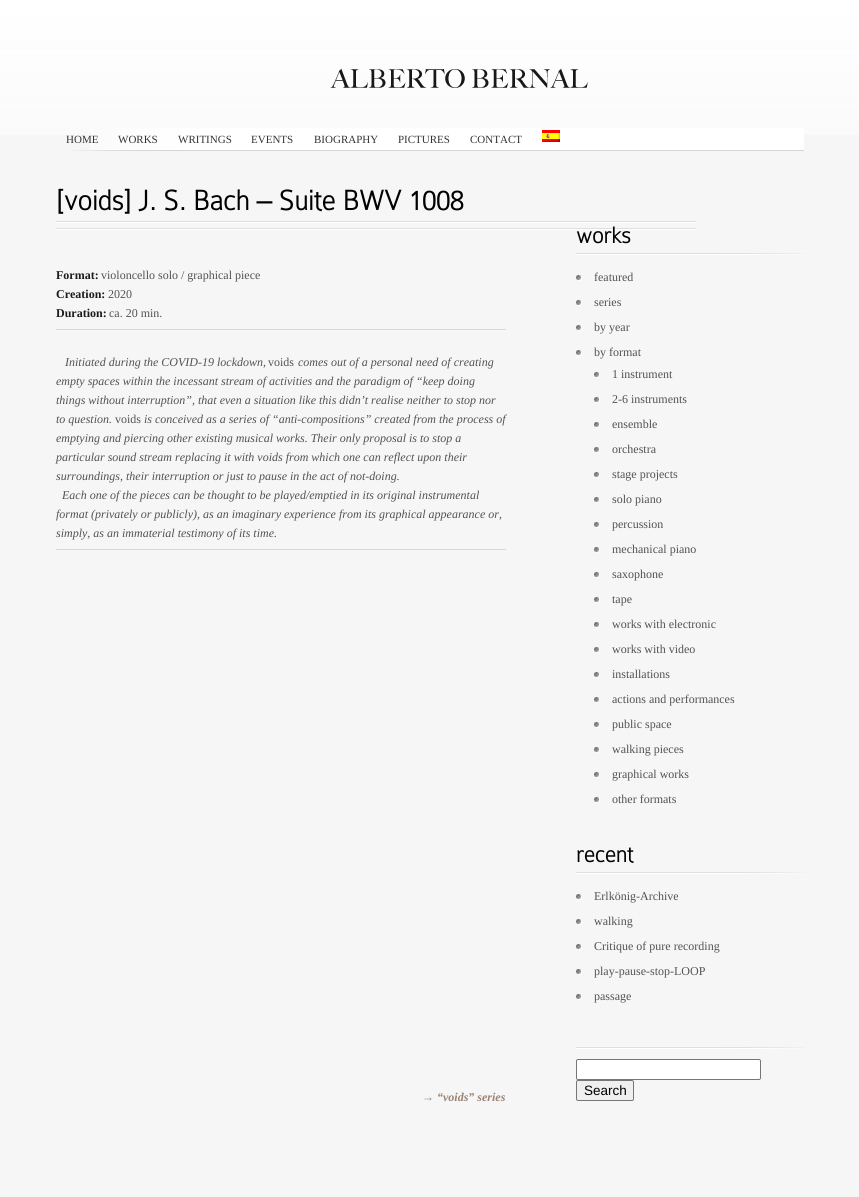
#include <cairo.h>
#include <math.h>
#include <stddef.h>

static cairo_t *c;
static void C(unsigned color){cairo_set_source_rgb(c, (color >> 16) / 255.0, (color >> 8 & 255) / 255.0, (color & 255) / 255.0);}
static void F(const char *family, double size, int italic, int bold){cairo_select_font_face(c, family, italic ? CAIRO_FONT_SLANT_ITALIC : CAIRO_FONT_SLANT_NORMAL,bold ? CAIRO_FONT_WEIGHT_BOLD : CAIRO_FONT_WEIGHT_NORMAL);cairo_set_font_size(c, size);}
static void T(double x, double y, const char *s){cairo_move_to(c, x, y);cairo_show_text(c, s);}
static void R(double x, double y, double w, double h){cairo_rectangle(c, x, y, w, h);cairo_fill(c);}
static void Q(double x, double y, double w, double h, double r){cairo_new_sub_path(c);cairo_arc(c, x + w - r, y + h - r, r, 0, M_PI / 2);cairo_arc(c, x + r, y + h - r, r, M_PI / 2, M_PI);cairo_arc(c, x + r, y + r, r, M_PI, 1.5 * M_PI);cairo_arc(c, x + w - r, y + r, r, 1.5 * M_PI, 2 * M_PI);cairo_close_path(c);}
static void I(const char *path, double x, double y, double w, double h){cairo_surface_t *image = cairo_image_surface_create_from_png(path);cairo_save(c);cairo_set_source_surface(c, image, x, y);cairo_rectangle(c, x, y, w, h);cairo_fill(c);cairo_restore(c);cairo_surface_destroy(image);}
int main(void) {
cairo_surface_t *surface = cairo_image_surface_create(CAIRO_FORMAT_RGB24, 859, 1197);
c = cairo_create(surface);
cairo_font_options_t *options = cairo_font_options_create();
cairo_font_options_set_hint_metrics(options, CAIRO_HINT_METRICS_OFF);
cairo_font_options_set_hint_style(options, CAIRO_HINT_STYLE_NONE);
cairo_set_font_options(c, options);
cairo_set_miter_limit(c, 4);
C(0xf6f6f6);
cairo_paint(c);
I("1.png",0,0,859,135);
I("2.png",330,68,258,20);
I("3.png",90,128,714,22);
F("Liberation Serif",11,0,0);
C(0x333333);
T(66,143,"HOME");
T(118,143,"WORKS");
T(178,143,"WRITINGS");
T(251,143,"EVENTS");
T(314,143,"BIOGRAPHY");
T(398,143,"PICTURES");
T(470,143,"CONTACT");
I("4.png",542,130,18,12);
I("5.png",70,150,734,1);
F("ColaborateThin",30,0,1);
C(0x000000);
T(56,210,"[voids] J. S. Bach – Suite BWV 1008");
I("6.png",56,221,640,2);
I("6.png",56,228,640,2);
F("Liberation Serif",12,0,1);
C(0x1c1c1c);
T(56,279,"Format:");
F("Liberation Serif",12,0,0);
C(0x525252);
T(101,279,"violoncello solo / graphical piece");
F("Liberation Serif",12,0,1);
C(0x1c1c1c);
T(56,298,"Creation:");
F("Liberation Serif",12,0,0);
C(0x525252);
T(108,298,"2020");
F("Liberation Serif",12,0,1);
C(0x1c1c1c);
T(56,317,"Duration:");
F("Liberation Serif",12,0,0);
C(0x525252);
T(109,317,"ca. 20 min.");
C(0xd8d8d8);
R(56,329,450,1);
F("Liberation Serif",12,1,0);
C(0x525252);
T(65,366,"Initiated during the COVID-19 lockdown,");
F("Liberation Serif",12,0,0);
T(268,366,"voids");
F("Liberation Serif",12,1,0);
T(298,366,"comes out of a personal need of creating");
T(56,385,"empty spaces within the incessant stream of activities and the paradigm of “keep doing");
T(56,404,"things without interruption”, that even a situation like this didn’t realise neither to stop nor");
T(56,423,"to question.");
F("Liberation Serif",12,0,0);
T(115,423,"voids");
F("Liberation Serif",12,1,0);
T(144,423,"is conceived as a series of “anti-compositions” created from the process of");
T(56,442,"emptying and piercing other existing musical works. Their only proposal is to stop a");
T(56,461,"particular sound stream replacing it with voids from which one can reflect upon their");
T(56,480,"surroundings, their interruption or just to pause in the act of not-doing.");
T(62,499,"Each one of the pieces can be thought to be played/emptied in its original instrumental");
T(56,518,"format (privately or publicly), as an imaginary experience from its graphical appearance or,");
T(56,537,"simply, as an immaterial testimony of its time.");
C(0xd8d8d8);
R(56,549,450,1);
F("Liberation Serif",12,1,1);
C(0x998374);
T(422,1101,"→ “voids” series");
I("7.png",576,253,228,2);
F("ColaborateThin",24,0,1);
C(0x000000);
T(576,243,"works");
I("8.png",576,275,6,6);
F("Liberation Serif",12,0,0);
C(0x525252);
T(594,281,"featured");
I("8.png",576,300,6,6);
T(594,306,"series");
I("8.png",576,325,6,6);
T(594,331,"by year");
I("8.png",576,350,6,6);
T(594,356,"by format");
I("8.png",594,372,6,6);
T(612,378,"1 instrument");
I("8.png",594,397,6,6);
T(612,403,"2-6 instruments");
I("8.png",594,422,6,6);
T(612,428,"ensemble");
I("8.png",594,447,6,6);
T(612,453,"orchestra");
I("8.png",594,472,6,6);
T(612,478,"stage projects");
I("8.png",594,497,6,6);
T(612,503,"solo piano");
I("8.png",594,522,6,6);
T(612,528,"percussion");
I("8.png",594,547,6,6);
T(612,553,"mechanical piano");
I("8.png",594,572,6,6);
T(612,578,"saxophone");
I("8.png",594,597,6,6);
T(612,603,"tape");
I("8.png",594,622,6,6);
T(612,628,"works with electronic");
I("8.png",594,647,6,6);
T(612,653,"works with video");
I("8.png",594,672,6,6);
T(612,678,"installations");
I("8.png",594,697,6,6);
T(612,703,"actions and performances");
I("8.png",594,722,6,6);
T(612,728,"public space");
I("8.png",594,747,6,6);
T(612,753,"walking pieces");
I("8.png",594,772,6,6);
T(612,778,"graphical works");
I("8.png",594,797,6,6);
T(612,803,"other formats");
I("7.png",576,872,228,2);
F("ColaborateThin",24,0,1);
C(0x000000);
T(576,862,"recent");
I("8.png",576,894,6,6);
F("Liberation Serif",12,0,0);
C(0x525252);
T(594,900,"Erlkönig-Archive");
I("8.png",576,919,6,6);
T(594,925,"walking");
I("8.png",576,944,6,6);
T(594,950,"Critique of pure recording");
I("8.png",576,969,6,6);
T(594,975,"play-pause-stop-LOOP");
I("8.png",576,994,6,6);
T(594,1000,"passage");
I("7.png",576,1047,228,2);
C(0xffffff);
Q(576.5,1059.5,184,20,1.5);
cairo_fill_preserve(c);
C(0x767676);
cairo_set_line_width(c,1);
cairo_stroke(c);
C(0xefefef);
Q(576.5,1080.5,57,20,1.5);
cairo_fill_preserve(c);
C(0x767676);
cairo_stroke(c);
F("Liberation Sans",13.5,0,0);
C(0x000000);
T(584,1095,"Search");
cairo_surface_write_to_png(surface, "o.png");
cairo_font_options_destroy(options);
cairo_destroy(c);
cairo_surface_destroy(surface);
return 0;
}
